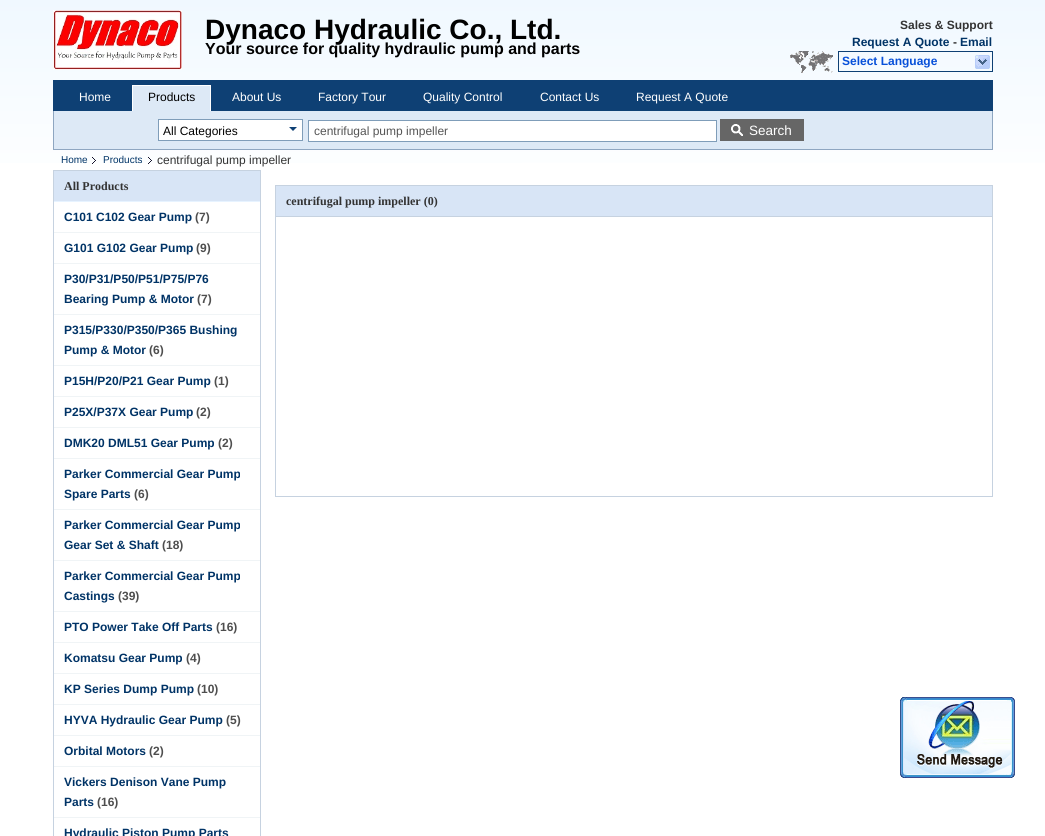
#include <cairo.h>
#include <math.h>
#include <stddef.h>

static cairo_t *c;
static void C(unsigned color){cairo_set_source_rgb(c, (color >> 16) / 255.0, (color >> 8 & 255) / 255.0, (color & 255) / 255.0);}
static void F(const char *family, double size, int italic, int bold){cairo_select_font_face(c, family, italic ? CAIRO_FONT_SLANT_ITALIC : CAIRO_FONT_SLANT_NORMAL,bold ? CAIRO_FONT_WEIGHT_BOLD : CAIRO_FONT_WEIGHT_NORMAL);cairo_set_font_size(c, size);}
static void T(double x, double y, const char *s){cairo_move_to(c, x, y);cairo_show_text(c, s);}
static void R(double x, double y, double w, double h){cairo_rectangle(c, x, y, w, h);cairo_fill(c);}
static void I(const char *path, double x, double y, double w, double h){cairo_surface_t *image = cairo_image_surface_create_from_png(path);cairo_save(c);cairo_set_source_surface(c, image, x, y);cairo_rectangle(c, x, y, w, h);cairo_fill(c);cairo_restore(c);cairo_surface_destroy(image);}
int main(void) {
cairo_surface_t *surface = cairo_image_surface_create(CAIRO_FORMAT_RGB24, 1045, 836);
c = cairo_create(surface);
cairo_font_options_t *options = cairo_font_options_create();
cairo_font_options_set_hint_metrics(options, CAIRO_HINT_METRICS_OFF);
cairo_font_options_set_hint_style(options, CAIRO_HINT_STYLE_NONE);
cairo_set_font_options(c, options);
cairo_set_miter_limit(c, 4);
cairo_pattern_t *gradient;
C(0xffffff);
cairo_paint(c);
gradient = cairo_pattern_create_linear(522,0,523,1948);
cairo_pattern_add_color_stop_rgba(gradient,0,0.941,0.973,1,1);
cairo_pattern_add_color_stop_rgba(gradient,.1,1,1,1,1);
cairo_pattern_add_color_stop_rgba(gradient,1,1,1,1,1);
cairo_set_source(c,gradient);
cairo_pattern_destroy(gradient);
R(0,0,1045,163);
I("1.png",53,10,129,60);
F("Liberation Sans",28,0,1);
C(0x000000);
T(205,39,"Dynaco Hydraulic Co., Ltd.");
F("Liberation Sans",16,0,1);
T(205,54,"Your source for quality hydraulic pump and parts");
F("Liberation Sans",12,0,1);
C(0x333333);
T(900,29,"Sales & Support");
C(0x003366);
T(852,46,"Request A Quote");
C(0x333333);
T(953,46,"-");
C(0x003366);
T(960,46,"Email");
I("2.png",790,51,43,22);
cairo_rectangle(c,838.5,51.5,154,20);
C(0x0e4074);
cairo_set_line_width(c,1);
cairo_stroke(c);
C(0x0750d9);
T(842,65,"Select Language");
I("3.png",975,55,15,14);
C(0x8ea6c1);
R(992,110,1,40);
R(53,149,940,1);
R(53,110,1,40);
C(0x0e4074);
R(53,80,940,31);
F("Liberation Sans",12,0,0);
C(0xffffff);
T(79,101,"Home");
C(0xdde9f6);
R(133,86,77,25);
R(54,111,938,38);
cairo_save(c);
cairo_rectangle(c,53,80,940,31);
cairo_clip(c);
cairo_rectangle(c,132.5,85.5,78,39);
C(0xffffff);
cairo_stroke(c);
cairo_restore(c);
C(0x000000);
T(148,101,"Products");
C(0xffffff);
T(232,101,"About Us");
T(318,101,"Factory Tour");
T(423,101,"Quality Control");
T(540,101,"Contact Us");
T(636,101,"Request A Quote");
cairo_rectangle(c,158.5,119.5,144,21);
C(0x7f9db9);
cairo_stroke(c);
C(0xffffff);
R(159,120,143,20);
C(0x000000);
T(163,135,"All Categories");
C(0x0e4074);
cairo_new_path(c);
cairo_move_to(c,289,127);
cairo_line_to(c,297,127);
cairo_line_to(c,293,131);
cairo_close_path(c);
cairo_fill(c);
C(0xffffff);
cairo_rectangle(c,308.5,120.5,408,21);
cairo_fill_preserve(c);
C(0x7f9db9);
cairo_stroke(c);
C(0x555555);
T(314,135,"centrifugal pump impeller");
C(0x666666);
R(720,119,84,22);
I("4.png",731,124,12,12);
F("Liberation Sans",13.5,0,0);
C(0xffffff);
T(749,135,"Search");
F("Liberation Sans",10,0,0);
C(0x003366);
T(61,163,"Home");
I("5.png",92,157,4,7);
T(103,163,"Products");
I("5.png",148,157,4,7);
F("Liberation Sans",12,0,0);
C(0x333333);
T(157,164,"centrifugal pump impeller");
cairo_rectangle(c,53.5,170.5,207,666);
C(0xc6d2e0);
cairo_stroke(c);
C(0xd8e5f6);
R(54,171,206,30);
C(0xe7f3ff);
R(54,201,206,1);
F("Liberation Serif",12,0,1);
C(0x333333);
T(64,190,"All Products");
C(0xf0f4f6);
R(54,232,206,1);
F("Liberation Sans",12,0,1);
C(0x003366);
T(64,221,"C101 C102 Gear Pump");
C(0x4e4e4e);
T(195,221,"(7)");
C(0xf0f4f6);
R(54,263,206,1);
C(0x003366);
T(64,252,"G101 G102 Gear Pump");
C(0x4e4e4e);
T(196,252,"(9)");
C(0xf0f4f6);
R(54,314,206,1);
C(0x003366);
T(64,283,"P30/P31/P50/P51/P75/P76");
T(64,303,"Bearing Pump & Motor");
C(0x4e4e4e);
T(197,303,"(7)");
C(0xf0f4f6);
R(54,365,206,1);
C(0x003366);
T(64,334,"P315/P330/P350/P365 Bushing");
T(64,354,"Pump & Motor");
C(0x4e4e4e);
T(149,354,"(6)");
C(0xf0f4f6);
R(54,396,206,1);
C(0x003366);
T(64,385,"P15H/P20/P21 Gear Pump");
C(0x4e4e4e);
T(214,385,"(1)");
C(0xf0f4f6);
R(54,427,206,1);
C(0x003366);
T(64,416,"P25X/P37X Gear Pump");
C(0x4e4e4e);
T(196,416,"(2)");
C(0xf0f4f6);
R(54,458,206,1);
C(0x003366);
T(64,447,"DMK20 DML51 Gear Pump");
C(0x4e4e4e);
T(218,447,"(2)");
C(0xf0f4f6);
R(54,509,206,1);
C(0x003366);
T(64,478,"Parker Commercial Gear Pump");
T(64,498,"Spare Parts");
C(0x4e4e4e);
T(134,498,"(6)");
C(0xf0f4f6);
R(54,560,206,1);
C(0x003366);
T(64,529,"Parker Commercial Gear Pump");
T(64,549,"Gear Set & Shaft");
C(0x4e4e4e);
T(162,549,"(18)");
C(0xf0f4f6);
R(54,611,206,1);
C(0x003366);
T(64,580,"Parker Commercial Gear Pump");
T(64,600,"Castings");
C(0x4e4e4e);
T(118,600,"(39)");
C(0xf0f4f6);
R(54,642,206,1);
C(0x003366);
T(64,631,"PTO Power Take Off Parts");
C(0x4e4e4e);
T(216,631,"(16)");
C(0xf0f4f6);
R(54,673,206,1);
C(0x003366);
T(64,662,"Komatsu Gear Pump");
C(0x4e4e4e);
T(186,662,"(4)");
C(0xf0f4f6);
R(54,704,206,1);
C(0x003366);
T(64,693,"KP Series Dump Pump");
C(0x4e4e4e);
T(197,693,"(10)");
C(0xf0f4f6);
R(54,735,206,1);
C(0x003366);
T(64,724,"HYVA Hydraulic Gear Pump");
C(0x4e4e4e);
T(226,724,"(5)");
C(0xf0f4f6);
R(54,766,206,1);
C(0x003366);
T(64,755,"Orbital Motors");
C(0x4e4e4e);
T(149,755,"(2)");
C(0xf0f4f6);
R(54,817,206,1);
C(0x003366);
T(64,786,"Vickers Denison Vane Pump");
T(64,806,"Parts");
C(0x4e4e4e);
T(97,806,"(16)");
C(0x003366);
T(64,837,"Hydraulic Piston Pump Parts");
cairo_rectangle(c,275.5,185.5,717,311);
C(0xc6d2e0);
cairo_stroke(c);
C(0xd8e5f6);
R(276,186,716,30);
C(0xc6d2e0);
R(276,216,716,1);
F("Liberation Serif",12,0,1);
C(0x333333);
T(286,205,"centrifugal pump impeller (0)");
I("6.png",900,697,115,81);
cairo_surface_write_to_png(surface, "o.png");
cairo_font_options_destroy(options);
cairo_destroy(c);
cairo_surface_destroy(surface);
return 0;
}
